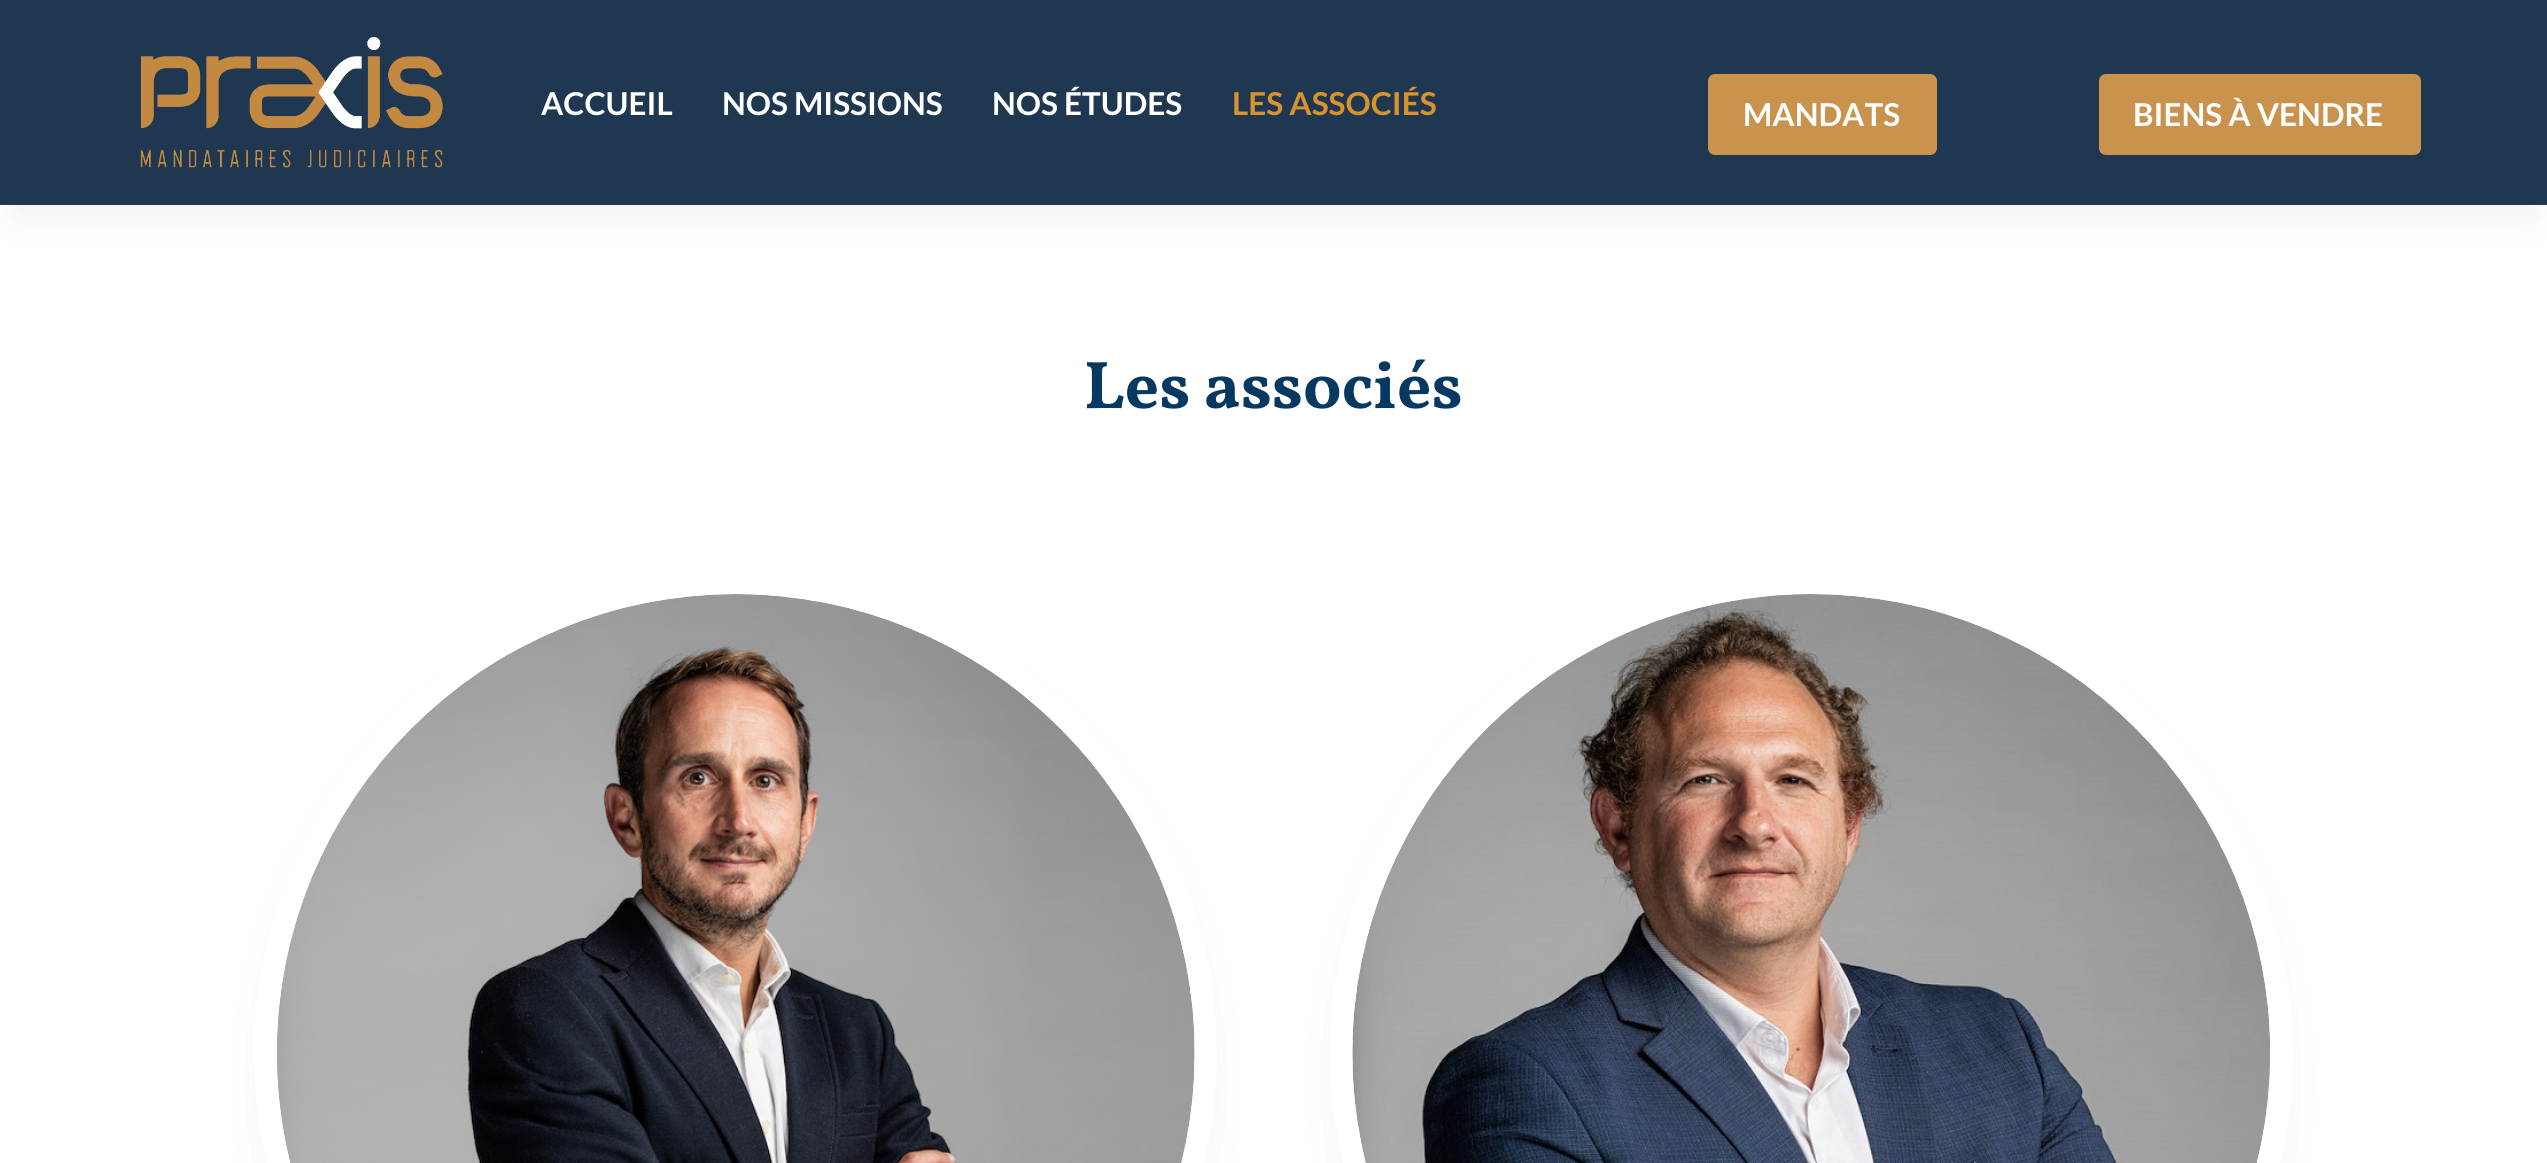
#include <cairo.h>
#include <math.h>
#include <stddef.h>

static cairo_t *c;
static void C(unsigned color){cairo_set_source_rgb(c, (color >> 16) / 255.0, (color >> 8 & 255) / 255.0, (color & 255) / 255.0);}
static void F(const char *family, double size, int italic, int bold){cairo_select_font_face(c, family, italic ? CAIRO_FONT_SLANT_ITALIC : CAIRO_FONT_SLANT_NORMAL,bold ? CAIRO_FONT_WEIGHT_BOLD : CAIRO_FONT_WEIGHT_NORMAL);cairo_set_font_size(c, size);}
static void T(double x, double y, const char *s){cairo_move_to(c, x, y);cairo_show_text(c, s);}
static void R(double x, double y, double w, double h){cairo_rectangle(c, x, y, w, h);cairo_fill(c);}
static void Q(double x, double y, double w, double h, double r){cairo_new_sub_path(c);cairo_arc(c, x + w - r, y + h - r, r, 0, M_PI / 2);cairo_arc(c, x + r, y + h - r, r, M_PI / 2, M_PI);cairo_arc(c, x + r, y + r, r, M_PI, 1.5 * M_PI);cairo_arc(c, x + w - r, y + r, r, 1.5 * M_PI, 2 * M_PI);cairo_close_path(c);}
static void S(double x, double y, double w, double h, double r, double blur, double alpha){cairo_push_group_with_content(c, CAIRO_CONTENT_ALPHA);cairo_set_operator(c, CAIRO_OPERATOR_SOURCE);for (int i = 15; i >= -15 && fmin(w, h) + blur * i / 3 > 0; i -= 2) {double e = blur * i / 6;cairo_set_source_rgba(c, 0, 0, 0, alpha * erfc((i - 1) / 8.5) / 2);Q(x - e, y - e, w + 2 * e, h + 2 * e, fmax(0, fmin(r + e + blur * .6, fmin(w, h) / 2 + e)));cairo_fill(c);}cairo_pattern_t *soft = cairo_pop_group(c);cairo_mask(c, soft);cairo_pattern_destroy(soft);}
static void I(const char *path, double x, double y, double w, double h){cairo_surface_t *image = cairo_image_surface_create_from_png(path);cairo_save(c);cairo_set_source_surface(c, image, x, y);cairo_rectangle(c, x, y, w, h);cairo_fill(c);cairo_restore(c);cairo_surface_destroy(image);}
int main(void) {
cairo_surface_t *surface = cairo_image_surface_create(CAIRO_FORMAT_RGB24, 2547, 1163);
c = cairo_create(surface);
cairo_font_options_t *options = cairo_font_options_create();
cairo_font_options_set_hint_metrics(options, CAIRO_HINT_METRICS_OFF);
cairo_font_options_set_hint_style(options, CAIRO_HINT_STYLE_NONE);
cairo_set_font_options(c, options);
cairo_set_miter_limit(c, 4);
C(0xffffff);
cairo_paint(c);
C(0x000000);
S(14,41,2520,177,0,20,.06);
C(0x1f3750);
R(0,0,2547,205);
I("1.png",140,37,303,131);
F("Lato",31.5,0,1);
C(0xffffff);
T(541,115,"ACCUEIL");
T(722,115,"NOS MISSIONS");
T(992,115,"NOS ÉTUDES");
C(0xd7942e);
T(1232,115,"LES ASSOCIÉS");
C(0xc9924d);
Q(1710.5,76.5,224,76,4.5);
cairo_fill_preserve(c);
cairo_set_line_width(c,5);
cairo_stroke(c);
C(0xffffff);
T(1743,126,"MANDATS");
C(0xc9924d);
Q(2101.5,76.5,317,76,4.5);
cairo_fill_preserve(c);
cairo_stroke(c);
C(0xffffff);
T(2133,126,"BIENS À VENDRE");
F("Vollkorn",67.5,0,1);
C(0x053962);
T(1084,408,"Les associés");
C(0xeceff3);
S(268,612,936,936,468,20,1);
cairo_arc(c,735.5,1053.5,470,0,2 * M_PI);
C(0xffffff);
cairo_set_line_width(c,23);
cairo_stroke(c);
I("2.png",277,594,918,569);
C(0xeceff3);
S(1343,612,936,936,468,20,1);
cairo_arc(c,1811.5,1053.5,470,0,2 * M_PI);
C(0xffffff);
cairo_stroke(c);
I("3.png",1352,594,918,569);
cairo_surface_write_to_png(surface, "o.png");
cairo_font_options_destroy(options);
cairo_destroy(c);
cairo_surface_destroy(surface);
return 0;
}
